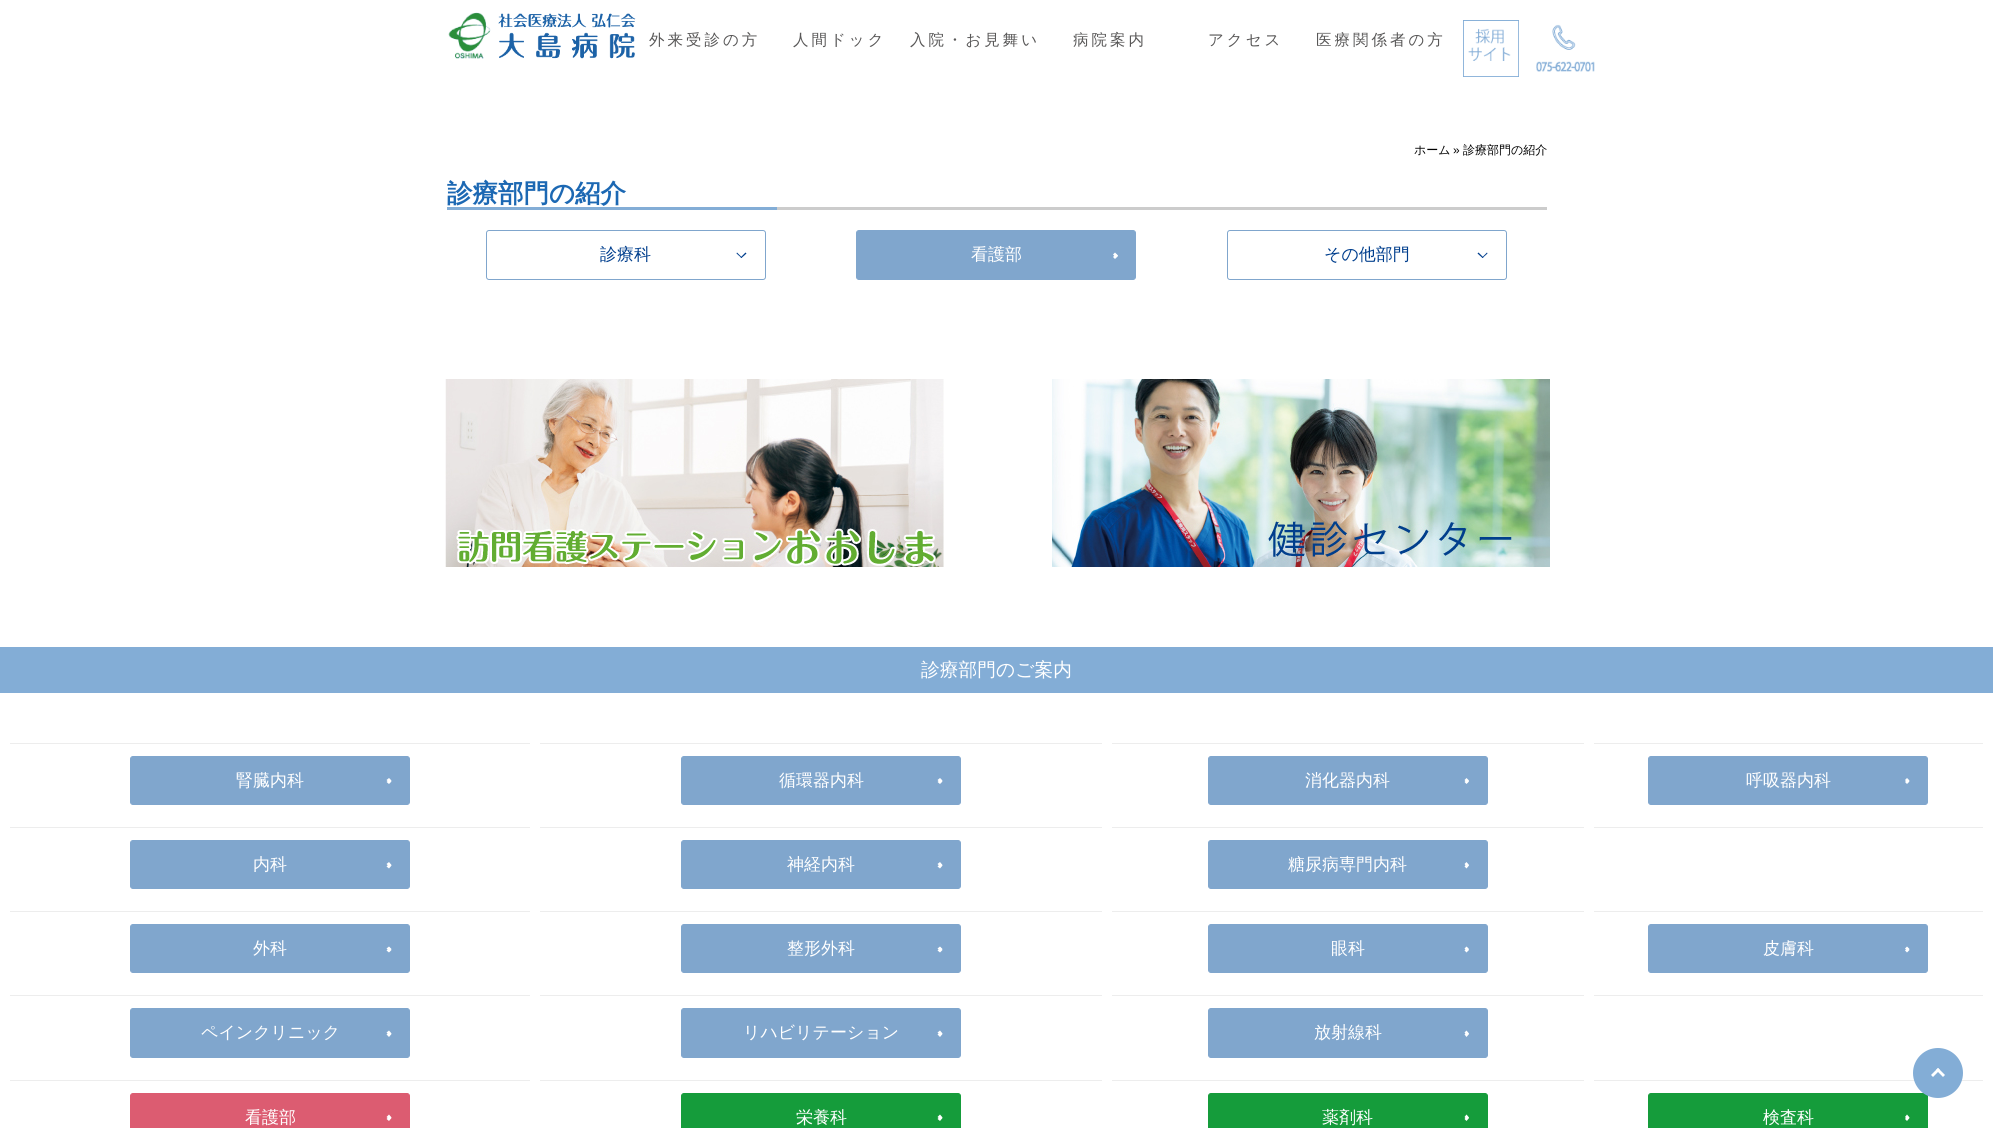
#include <cairo.h>
#include <math.h>
#include <stddef.h>

static cairo_t *c;
static void C(unsigned color){cairo_set_source_rgb(c, (color >> 16) / 255.0, (color >> 8 & 255) / 255.0, (color & 255) / 255.0);}
static void F(const char *family, double size, int italic, int bold){cairo_select_font_face(c, family, italic ? CAIRO_FONT_SLANT_ITALIC : CAIRO_FONT_SLANT_NORMAL,bold ? CAIRO_FONT_WEIGHT_BOLD : CAIRO_FONT_WEIGHT_NORMAL);cairo_set_font_size(c, size);}
static void T(double x, double y, const char *s){cairo_move_to(c, x, y);cairo_show_text(c, s);}
static void L(double x, double y, const char *s, double letter, double word){cairo_move_to(c, x, y);while (*s) {char ch[5] = {0};int n = 0;do ch[n++] = *s++; while ((*s & 0xC0) == 0x80);cairo_show_text(c, ch);cairo_rel_move_to(c, letter + word * (*ch == ' '), 0);}}
static void R(double x, double y, double w, double h){cairo_rectangle(c, x, y, w, h);cairo_fill(c);}
static void Q(double x, double y, double w, double h, double r){cairo_new_sub_path(c);cairo_arc(c, x + w - r, y + h - r, r, 0, M_PI / 2);cairo_arc(c, x + r, y + h - r, r, M_PI / 2, M_PI);cairo_arc(c, x + r, y + r, r, M_PI, 1.5 * M_PI);cairo_arc(c, x + w - r, y + r, r, 1.5 * M_PI, 2 * M_PI);cairo_close_path(c);}
static void I(const char *path, double x, double y, double w, double h){cairo_surface_t *image = cairo_image_surface_create_from_png(path);cairo_save(c);cairo_set_source_surface(c, image, x, y);cairo_rectangle(c, x, y, w, h);cairo_fill(c);cairo_restore(c);cairo_surface_destroy(image);}
int main(void) {
cairo_surface_t *surface = cairo_image_surface_create(CAIRO_FORMAT_RGB24, 1993, 1128);
c = cairo_create(surface);
cairo_font_options_t *options = cairo_font_options_create();
cairo_font_options_set_hint_metrics(options, CAIRO_HINT_METRICS_OFF);
cairo_font_options_set_hint_style(options, CAIRO_HINT_STYLE_NONE);
cairo_set_font_options(c, options);
cairo_set_miter_limit(c, 4);
C(0xffffff);
cairo_paint(c);
I("1.png",448,12,188,47);
F("WenQuanYi Zen Hei Medium",15.5,0,0);
C(0x585757);
L(649,45,"外来受診の方",3,0);
L(793,45,"人間ドック",3,0);
L(910,45,"入院・お見舞い",3,0);
L(1073,45,"病院案内",3,0);
L(1208,45,"アクセス",3,0);
L(1316,45,"医療関係者の方",3,0);
I("2.png",1463,20,56,57);
I("3.png",1536,24,59,48);
F("WenQuanYi Zen Hei Medium",12,0,0);
C(0x000000);
T(1414,154,"ホーム");
F("Liberation Sans",12,0,0);
T(1453,154,"»");
F("WenQuanYi Zen Hei Medium",12,0,0);
T(1463,154,"診療部門の紹介");
C(0xcccccc);
R(777,207,770,3);
F("WenQuanYi Zen Hei",25.5,0,1);
C(0x1c68b3);
T(447,202,"診療部門の紹介");
C(0x83add6);
R(447,207,330,3);
Q(486.5,230.5,279,49,2.5);
C(0x80a6cd);
cairo_set_line_width(c,1);
cairo_stroke(c);
F("WenQuanYi Zen Hei Medium",17,0,0);
C(0x003e8d);
T(600,260,"診療科");
cairo_new_path(c);
cairo_move_to(c,745.5,252.5);
cairo_line_to(c,746.5,253.5);
cairo_line_to(c,741.5,258);
cairo_line_to(c,740.5,257.5);
cairo_close_path(c);
cairo_fill(c);
cairo_new_path(c);
cairo_move_to(c,737,252.5);
cairo_line_to(c,742,257.5);
cairo_line_to(c,741.5,258);
cairo_line_to(c,736.5,253.5);
cairo_close_path(c);
cairo_fill(c);
C(0x80a6cd);
Q(856.5,230.5,279,49,2.5);
cairo_fill_preserve(c);
cairo_stroke(c);
C(0xffffff);
T(971,260,"看護部");
cairo_new_path(c);
cairo_move_to(c,1115,252.5);
cairo_line_to(c,1118,255.5);
cairo_line_to(c,1116,257.5);
cairo_line_to(c,1113,254.5);
cairo_close_path(c);
cairo_fill(c);
cairo_new_path(c);
cairo_move_to(c,1116,254);
cairo_line_to(c,1118,256);
cairo_line_to(c,1115,259);
cairo_line_to(c,1113,257);
cairo_close_path(c);
cairo_fill(c);
Q(1227.5,230.5,279,49,2.5);
C(0x80a6cd);
cairo_stroke(c);
C(0x003e8d);
T(1324,260,"その他部門");
cairo_new_path(c);
cairo_move_to(c,1487,252.5);
cairo_line_to(c,1487.5,253.5);
cairo_line_to(c,1482.5,258);
cairo_line_to(c,1482,257.5);
cairo_close_path(c);
cairo_fill(c);
cairo_new_path(c);
cairo_move_to(c,1478.5,252.5);
cairo_line_to(c,1483.5,257.5);
cairo_line_to(c,1482.5,258);
cairo_line_to(c,1477.5,253.5);
cairo_close_path(c);
cairo_fill(c);
I("4.png",445,379,499,188);
I("5.png",1052,379,498,188);
C(0x83add6);
R(0,647,1993,46);
F("WenQuanYi Zen Hei Medium",18.75,0,0);
C(0xffffff);
T(921,676,"診療部門のご案内");
C(0xededed);
R(10,743,520,1);
C(0x80a6cd);
Q(130.5,756.5,279,48,2.5);
cairo_fill_preserve(c);
cairo_stroke(c);
F("WenQuanYi Zen Hei Medium",17,0,0);
C(0xffffff);
T(236,786,"腎臓内科");
cairo_new_path(c);
cairo_move_to(c,389,778);
cairo_line_to(c,391.5,780.5);
cairo_line_to(c,389.5,783);
cairo_line_to(c,386.5,780);
cairo_close_path(c);
cairo_fill(c);
cairo_new_path(c);
cairo_move_to(c,389.5,779.5);
cairo_line_to(c,391.5,781.5);
cairo_line_to(c,389,784);
cairo_line_to(c,386.5,782);
cairo_close_path(c);
cairo_fill(c);
C(0xededed);
R(540,743,562,1);
C(0x80a6cd);
Q(681.5,756.5,279,48,2.5);
cairo_fill_preserve(c);
cairo_stroke(c);
C(0xffffff);
T(779,786,"循環器内科");
cairo_new_path(c);
cairo_move_to(c,940,778);
cairo_line_to(c,942.5,780.5);
cairo_line_to(c,940.5,783);
cairo_line_to(c,937.5,780);
cairo_close_path(c);
cairo_fill(c);
cairo_new_path(c);
cairo_move_to(c,940.5,779.5);
cairo_line_to(c,942.5,781.5);
cairo_line_to(c,940,784);
cairo_line_to(c,937.5,782);
cairo_close_path(c);
cairo_fill(c);
C(0xededed);
R(1112,743,472,1);
C(0x80a6cd);
Q(1208.5,756.5,279,48,2.5);
cairo_fill_preserve(c);
cairo_stroke(c);
C(0xffffff);
T(1305,786,"消化器内科");
cairo_new_path(c);
cairo_move_to(c,1466.5,778);
cairo_line_to(c,1469,780.5);
cairo_line_to(c,1467,783);
cairo_line_to(c,1464.5,780);
cairo_close_path(c);
cairo_fill(c);
cairo_new_path(c);
cairo_move_to(c,1467,779.5);
cairo_line_to(c,1469,781.5);
cairo_line_to(c,1466.5,784);
cairo_line_to(c,1464.5,782);
cairo_close_path(c);
cairo_fill(c);
C(0xededed);
R(1594,743,389,1);
C(0x80a6cd);
Q(1648.5,756.5,279,48,2.5);
cairo_fill_preserve(c);
cairo_stroke(c);
C(0xffffff);
T(1746,786,"呼吸器内科");
cairo_new_path(c);
cairo_move_to(c,1907,778);
cairo_line_to(c,1909.5,780.5);
cairo_line_to(c,1907.5,783);
cairo_line_to(c,1905,780);
cairo_close_path(c);
cairo_fill(c);
cairo_new_path(c);
cairo_move_to(c,1907.5,779.5);
cairo_line_to(c,1909.5,781.5);
cairo_line_to(c,1907,784);
cairo_line_to(c,1905,782);
cairo_close_path(c);
cairo_fill(c);
C(0xededed);
R(1594,827,389,1);
R(10,827,520,1);
C(0x80a6cd);
Q(130.5,840.5,279,48,2.5);
cairo_fill_preserve(c);
cairo_stroke(c);
C(0xffffff);
T(253,870,"内科");
cairo_new_path(c);
cairo_move_to(c,389,862);
cairo_line_to(c,391.5,865);
cairo_line_to(c,389.5,867);
cairo_line_to(c,386.5,864);
cairo_close_path(c);
cairo_fill(c);
cairo_new_path(c);
cairo_move_to(c,389.5,863.5);
cairo_line_to(c,391.5,865.5);
cairo_line_to(c,389,868.5);
cairo_line_to(c,386.5,866.5);
cairo_close_path(c);
cairo_fill(c);
C(0xededed);
R(540,827,562,1);
C(0x80a6cd);
Q(681.5,840.5,279,48,2.5);
cairo_fill_preserve(c);
cairo_stroke(c);
C(0xffffff);
T(787,870,"神経内科");
cairo_new_path(c);
cairo_move_to(c,940,862);
cairo_line_to(c,942.5,865);
cairo_line_to(c,940.5,867);
cairo_line_to(c,937.5,864);
cairo_close_path(c);
cairo_fill(c);
cairo_new_path(c);
cairo_move_to(c,940.5,863.5);
cairo_line_to(c,942.5,865.5);
cairo_line_to(c,940,868.5);
cairo_line_to(c,937.5,866.5);
cairo_close_path(c);
cairo_fill(c);
C(0xededed);
R(1112,827,472,1);
C(0x80a6cd);
Q(1208.5,840.5,279,48,2.5);
cairo_fill_preserve(c);
cairo_stroke(c);
C(0xffffff);
T(1288,870,"糖尿病専門内科");
cairo_new_path(c);
cairo_move_to(c,1466.5,862);
cairo_line_to(c,1469,865);
cairo_line_to(c,1467,867);
cairo_line_to(c,1464.5,864);
cairo_close_path(c);
cairo_fill(c);
cairo_new_path(c);
cairo_move_to(c,1467,863.5);
cairo_line_to(c,1469,865.5);
cairo_line_to(c,1466.5,868.5);
cairo_line_to(c,1464.5,866.5);
cairo_close_path(c);
cairo_fill(c);
C(0xededed);
R(10,911,520,1);
C(0x80a6cd);
Q(130.5,924.5,279,48,2.5);
cairo_fill_preserve(c);
cairo_stroke(c);
C(0xffffff);
T(253,954,"外科");
cairo_new_path(c);
cairo_move_to(c,389,946.5);
cairo_line_to(c,391.5,949);
cairo_line_to(c,389.5,951);
cairo_line_to(c,386.5,948.5);
cairo_close_path(c);
cairo_fill(c);
cairo_new_path(c);
cairo_move_to(c,389.5,947.5);
cairo_line_to(c,391.5,950);
cairo_line_to(c,389,952.5);
cairo_line_to(c,386.5,950.5);
cairo_close_path(c);
cairo_fill(c);
C(0xededed);
R(540,911,562,1);
C(0x80a6cd);
Q(681.5,924.5,279,48,2.5);
cairo_fill_preserve(c);
cairo_stroke(c);
C(0xffffff);
T(787,954,"整形外科");
cairo_new_path(c);
cairo_move_to(c,940,946.5);
cairo_line_to(c,942.5,949);
cairo_line_to(c,940.5,951);
cairo_line_to(c,937.5,948.5);
cairo_close_path(c);
cairo_fill(c);
cairo_new_path(c);
cairo_move_to(c,940.5,947.5);
cairo_line_to(c,942.5,950);
cairo_line_to(c,940,952.5);
cairo_line_to(c,937.5,950.5);
cairo_close_path(c);
cairo_fill(c);
C(0xededed);
R(1112,911,472,1);
C(0x80a6cd);
Q(1208.5,924.5,279,48,2.5);
cairo_fill_preserve(c);
cairo_stroke(c);
C(0xffffff);
T(1331,954,"眼科");
cairo_new_path(c);
cairo_move_to(c,1466.5,946.5);
cairo_line_to(c,1469,949);
cairo_line_to(c,1467,951);
cairo_line_to(c,1464.5,948.5);
cairo_close_path(c);
cairo_fill(c);
cairo_new_path(c);
cairo_move_to(c,1467,947.5);
cairo_line_to(c,1469,950);
cairo_line_to(c,1466.5,952.5);
cairo_line_to(c,1464.5,950.5);
cairo_close_path(c);
cairo_fill(c);
C(0xededed);
R(1594,911,389,1);
C(0x80a6cd);
Q(1648.5,924.5,279,48,2.5);
cairo_fill_preserve(c);
cairo_stroke(c);
C(0xffffff);
T(1763,954,"皮膚科");
cairo_new_path(c);
cairo_move_to(c,1907,946.5);
cairo_line_to(c,1909.5,949);
cairo_line_to(c,1907.5,951);
cairo_line_to(c,1905,948.5);
cairo_close_path(c);
cairo_fill(c);
cairo_new_path(c);
cairo_move_to(c,1907.5,947.5);
cairo_line_to(c,1909.5,950);
cairo_line_to(c,1907,952.5);
cairo_line_to(c,1905,950.5);
cairo_close_path(c);
cairo_fill(c);
C(0xededed);
R(1594,995,389,1);
R(10,995,520,1);
C(0x80a6cd);
Q(130.5,1008.5,279,49,2.5);
cairo_fill_preserve(c);
cairo_stroke(c);
C(0xffffff);
T(201,1038,"ペインクリニック");
cairo_new_path(c);
cairo_move_to(c,389,1030.5);
cairo_line_to(c,391.5,1033.5);
cairo_line_to(c,389.5,1035.5);
cairo_line_to(c,386.5,1032.5);
cairo_close_path(c);
cairo_fill(c);
cairo_new_path(c);
cairo_move_to(c,389.5,1032);
cairo_line_to(c,391.5,1034);
cairo_line_to(c,389,1037);
cairo_line_to(c,386.5,1034.5);
cairo_close_path(c);
cairo_fill(c);
C(0xededed);
R(540,995,562,1);
C(0x80a6cd);
Q(681.5,1008.5,279,49,2.5);
cairo_fill_preserve(c);
cairo_stroke(c);
C(0xffffff);
T(743,1038,"リハビリテーション");
cairo_new_path(c);
cairo_move_to(c,940,1030.5);
cairo_line_to(c,942.5,1033.5);
cairo_line_to(c,940.5,1035.5);
cairo_line_to(c,937.5,1032.5);
cairo_close_path(c);
cairo_fill(c);
cairo_new_path(c);
cairo_move_to(c,940.5,1032);
cairo_line_to(c,942.5,1034);
cairo_line_to(c,940,1037);
cairo_line_to(c,937.5,1034.5);
cairo_close_path(c);
cairo_fill(c);
C(0xededed);
R(1112,995,472,1);
C(0x80a6cd);
Q(1208.5,1008.5,279,49,2.5);
cairo_fill_preserve(c);
cairo_stroke(c);
C(0xffffff);
T(1314,1038,"放射線科");
cairo_new_path(c);
cairo_move_to(c,1466.5,1030.5);
cairo_line_to(c,1469,1033.5);
cairo_line_to(c,1467,1035.5);
cairo_line_to(c,1464.5,1032.5);
cairo_close_path(c);
cairo_fill(c);
cairo_new_path(c);
cairo_move_to(c,1467,1032);
cairo_line_to(c,1469,1034);
cairo_line_to(c,1466.5,1037);
cairo_line_to(c,1464.5,1034.5);
cairo_close_path(c);
cairo_fill(c);
C(0xededed);
R(10,1080,520,1);
C(0xdc5c71);
Q(130.5,1093.5,279,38,2.5);
cairo_fill_preserve(c);
cairo_stroke(c);
C(0xffffff);
T(245,1123,"看護部");
cairo_new_path(c);
cairo_move_to(c,389,1114.5);
cairo_line_to(c,391.5,1117.5);
cairo_line_to(c,389.5,1119.5);
cairo_line_to(c,386.5,1117);
cairo_close_path(c);
cairo_fill(c);
cairo_new_path(c);
cairo_move_to(c,389.5,1116);
cairo_line_to(c,391.5,1118);
cairo_line_to(c,389,1121);
cairo_line_to(c,386.5,1119);
cairo_close_path(c);
cairo_fill(c);
C(0xededed);
R(540,1080,562,1);
C(0x159c3b);
Q(681.5,1093.5,279,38,2.5);
cairo_fill_preserve(c);
cairo_stroke(c);
C(0xffffff);
T(796,1123,"栄養科");
cairo_new_path(c);
cairo_move_to(c,940,1114.5);
cairo_line_to(c,942.5,1117.5);
cairo_line_to(c,940.5,1119.5);
cairo_line_to(c,937.5,1117);
cairo_close_path(c);
cairo_fill(c);
cairo_new_path(c);
cairo_move_to(c,940.5,1116);
cairo_line_to(c,942.5,1118);
cairo_line_to(c,940,1121);
cairo_line_to(c,937.5,1119);
cairo_close_path(c);
cairo_fill(c);
C(0xededed);
R(1112,1080,472,1);
C(0x159c3b);
Q(1208.5,1093.5,279,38,2.5);
cairo_fill_preserve(c);
cairo_stroke(c);
C(0xffffff);
T(1322,1123,"薬剤科");
cairo_new_path(c);
cairo_move_to(c,1466.5,1114.5);
cairo_line_to(c,1469,1117.5);
cairo_line_to(c,1467,1119.5);
cairo_line_to(c,1464.5,1117);
cairo_close_path(c);
cairo_fill(c);
cairo_new_path(c);
cairo_move_to(c,1467,1116);
cairo_line_to(c,1469,1118);
cairo_line_to(c,1466.5,1121);
cairo_line_to(c,1464.5,1119);
cairo_close_path(c);
cairo_fill(c);
C(0xededed);
R(1594,1080,389,1);
C(0x159c3b);
Q(1648.5,1093.5,279,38,2.5);
cairo_fill_preserve(c);
cairo_stroke(c);
C(0xffffff);
T(1763,1123,"検査科");
cairo_new_path(c);
cairo_move_to(c,1907,1114.5);
cairo_line_to(c,1909.5,1117.5);
cairo_line_to(c,1907.5,1119.5);
cairo_line_to(c,1905,1117);
cairo_close_path(c);
cairo_fill(c);
cairo_new_path(c);
cairo_move_to(c,1907.5,1116);
cairo_line_to(c,1909.5,1118);
cairo_line_to(c,1907,1121);
cairo_line_to(c,1905,1119);
cairo_close_path(c);
cairo_fill(c);
C(0x83add6);
cairo_arc(c,1938,1073,24,0,2 * M_PI);
cairo_fill_preserve(c);
cairo_set_line_width(c,2);
cairo_stroke(c);
C(0xffffff);
cairo_new_path(c);
cairo_move_to(c,1931,1075);
cairo_line_to(c,1938,1068);
cairo_line_to(c,1940,1070);
cairo_line_to(c,1933,1077);
cairo_close_path(c);
cairo_fill(c);
cairo_new_path(c);
cairo_move_to(c,1936,1070);
cairo_line_to(c,1938,1068);
cairo_line_to(c,1945,1075);
cairo_line_to(c,1943,1077);
cairo_close_path(c);
cairo_fill(c);
cairo_surface_write_to_png(surface, "o.png");
cairo_font_options_destroy(options);
cairo_destroy(c);
cairo_surface_destroy(surface);
return 0;
}
